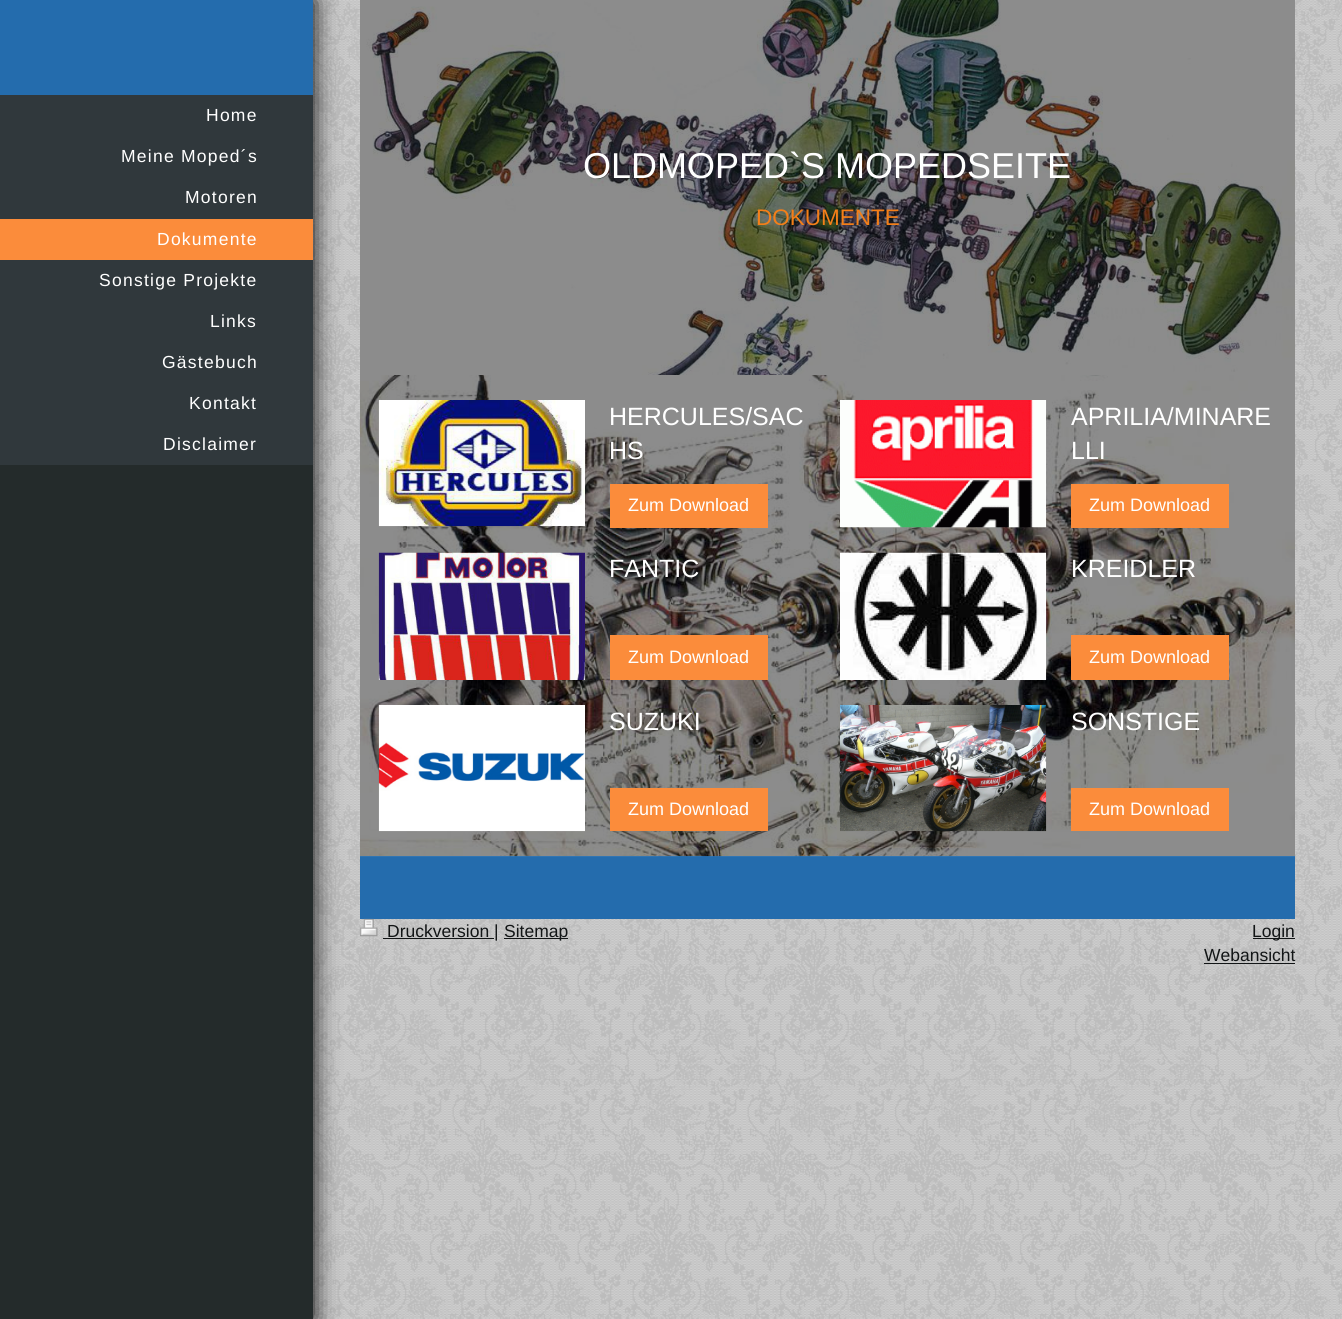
#include <cairo.h>
#include <math.h>
#include <stddef.h>

static cairo_t *c;
static void C(unsigned color){cairo_set_source_rgb(c, (color >> 16) / 255.0, (color >> 8 & 255) / 255.0, (color & 255) / 255.0);}
static void F(const char *family, double size, int italic, int bold){cairo_select_font_face(c, family, italic ? CAIRO_FONT_SLANT_ITALIC : CAIRO_FONT_SLANT_NORMAL,bold ? CAIRO_FONT_WEIGHT_BOLD : CAIRO_FONT_WEIGHT_NORMAL);cairo_set_font_size(c, size);}
static void T(double x, double y, const char *s){cairo_move_to(c, x, y);cairo_show_text(c, s);}
static void L(double x, double y, const char *s, double letter, double word){cairo_move_to(c, x, y);while (*s) {char ch[5] = {0};int n = 0;do ch[n++] = *s++; while ((*s & 0xC0) == 0x80);cairo_show_text(c, ch);cairo_rel_move_to(c, letter + word * (*ch == ' '), 0);}}
static void R(double x, double y, double w, double h){cairo_rectangle(c, x, y, w, h);cairo_fill(c);}
static void Q(double x, double y, double w, double h, double r){cairo_new_sub_path(c);cairo_arc(c, x + w - r, y + h - r, r, 0, M_PI / 2);cairo_arc(c, x + r, y + h - r, r, M_PI / 2, M_PI);cairo_arc(c, x + r, y + r, r, M_PI, 1.5 * M_PI);cairo_arc(c, x + w - r, y + r, r, 1.5 * M_PI, 2 * M_PI);cairo_close_path(c);}
static void S(double x, double y, double w, double h, double r, double blur, double alpha){cairo_push_group_with_content(c, CAIRO_CONTENT_ALPHA);cairo_set_operator(c, CAIRO_OPERATOR_SOURCE);for (int i = 15; i >= -15 && fmin(w, h) + blur * i / 3 > 0; i -= 2) {double e = blur * i / 6;cairo_set_source_rgba(c, 0, 0, 0, alpha * erfc((i - 1) / 8.5) / 2);Q(x - e, y - e, w + 2 * e, h + 2 * e, fmax(0, fmin(r + e + blur * .6, fmin(w, h) / 2 + e)));cairo_fill(c);}cairo_pattern_t *soft = cairo_pop_group(c);cairo_mask(c, soft);cairo_pattern_destroy(soft);}
static void I(const char *path, double x, double y, double w, double h){cairo_surface_t *image = cairo_image_surface_create_from_png(path);cairo_save(c);cairo_set_source_surface(c, image, x, y);cairo_rectangle(c, x, y, w, h);cairo_fill(c);cairo_restore(c);cairo_surface_destroy(image);}
int main(void) {
cairo_surface_t *surface = cairo_image_surface_create(CAIRO_FORMAT_RGB24, 1342, 1319);
c = cairo_create(surface);
cairo_font_options_t *options = cairo_font_options_create();
cairo_font_options_set_hint_metrics(options, CAIRO_HINT_METRICS_OFF);
cairo_font_options_set_hint_style(options, CAIRO_HINT_STYLE_NONE);
cairo_set_font_options(c, options);
cairo_set_miter_limit(c, 4);
C(0xffffff);
cairo_paint(c);
I("1.png",313,0,1029,1319);
C(0x000000);
S(0,0,313,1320,0,12.5,1);
C(0x242b2b);
R(0,465,313,854);
C(0x246cad);
R(0,0,313,95);
C(0x30383c);
R(0,95,313,370);
F("Liberation Sans",17.5,0,0);
C(0xffffff);
L(206,121,"Home",1.25,0);
L(121,162,"Meine Moped´s",1.25,0);
L(185,203,"Motoren",1.25,0);
C(0xfb8c3b);
R(0,219,313,41);
C(0xffffff);
L(157,245,"Dokumente",1.25,0);
L(99,286,"Sonstige Projekte",1.25,0);
L(210,327,"Links",1.25,0);
L(162,368,"Gästebuch",1.25,0);
L(189,409,"Kontakt",1.25,0);
L(163,450,"Disclaimer",1.25,0);
C(0x246cad);
R(360,856,935,63);
I("2.png",360,0,935,375);
F("Liberation Sans",36,0,0);
C(0xffffff);
T(583,178,"OLDMOPED`S MOPEDSEITE");
F("Liberation Sans",22.5,0,0);
C(0xf57f18);
T(756,225,"DOKUMENTE");
I("3.png",360,375,935,482);
I("4.png",378,400,207,127);
F("Liberation Sans",25,0,0);
C(0xffffff);
T(609,425,"HERCULES/SAC");
T(609,459,"HS");
C(0xfb8c3b);
R(610,484,158,44);
F("Liberation Sans",18,0,0);
C(0xffffff);
T(628,511,"Zum Download");
I("5.png",840,400,207,128);
F("Liberation Sans",25,0,0);
T(1071,425,"APRILIA/MINARE");
T(1071,459,"LLI");
C(0xfb8c3b);
R(1071,484,158,44);
F("Liberation Sans",18,0,0);
C(0xffffff);
T(1089,511,"Zum Download");
I("6.png",378,552,207,128);
F("Liberation Sans",25,0,0);
T(609,577,"FANTIC");
C(0xfb8c3b);
R(610,635,158,45);
F("Liberation Sans",18,0,0);
C(0xffffff);
T(628,663,"Zum Download");
I("7.png",840,552,207,128);
F("Liberation Sans",25,0,0);
T(1071,577,"KREIDLER");
C(0xfb8c3b);
R(1071,635,158,45);
F("Liberation Sans",18,0,0);
C(0xffffff);
T(1089,663,"Zum Download");
I("8.png",378,705,207,127);
F("Liberation Sans",25,0,0);
T(609,730,"SUZUKI");
C(0xfb8c3b);
R(610,788,158,43);
F("Liberation Sans",18,0,0);
C(0xffffff);
T(628,815,"Zum Download");
I("9.png",840,705,207,127);
F("Liberation Sans",25,0,0);
T(1071,730,"SONSTIGE");
C(0xfb8c3b);
R(1071,788,158,43);
F("Liberation Sans",18,0,0);
C(0xffffff);
T(1089,815,"Zum Download");
I("10.png",360,918,18,19);
C(0x121516);
R(383,938,111,1);
F("Liberation Sans",17.5,0,0);
T(387,937,"Druckversion |");
R(504,938,64,1);
T(504,937,"Sitemap");
R(1253,938,42,1);
T(1252,937,"Login");
T(1204,961,"Webansicht");
R(1204,963,91,1);
cairo_surface_write_to_png(surface, "o.png");
cairo_font_options_destroy(options);
cairo_destroy(c);
cairo_surface_destroy(surface);
return 0;
}
